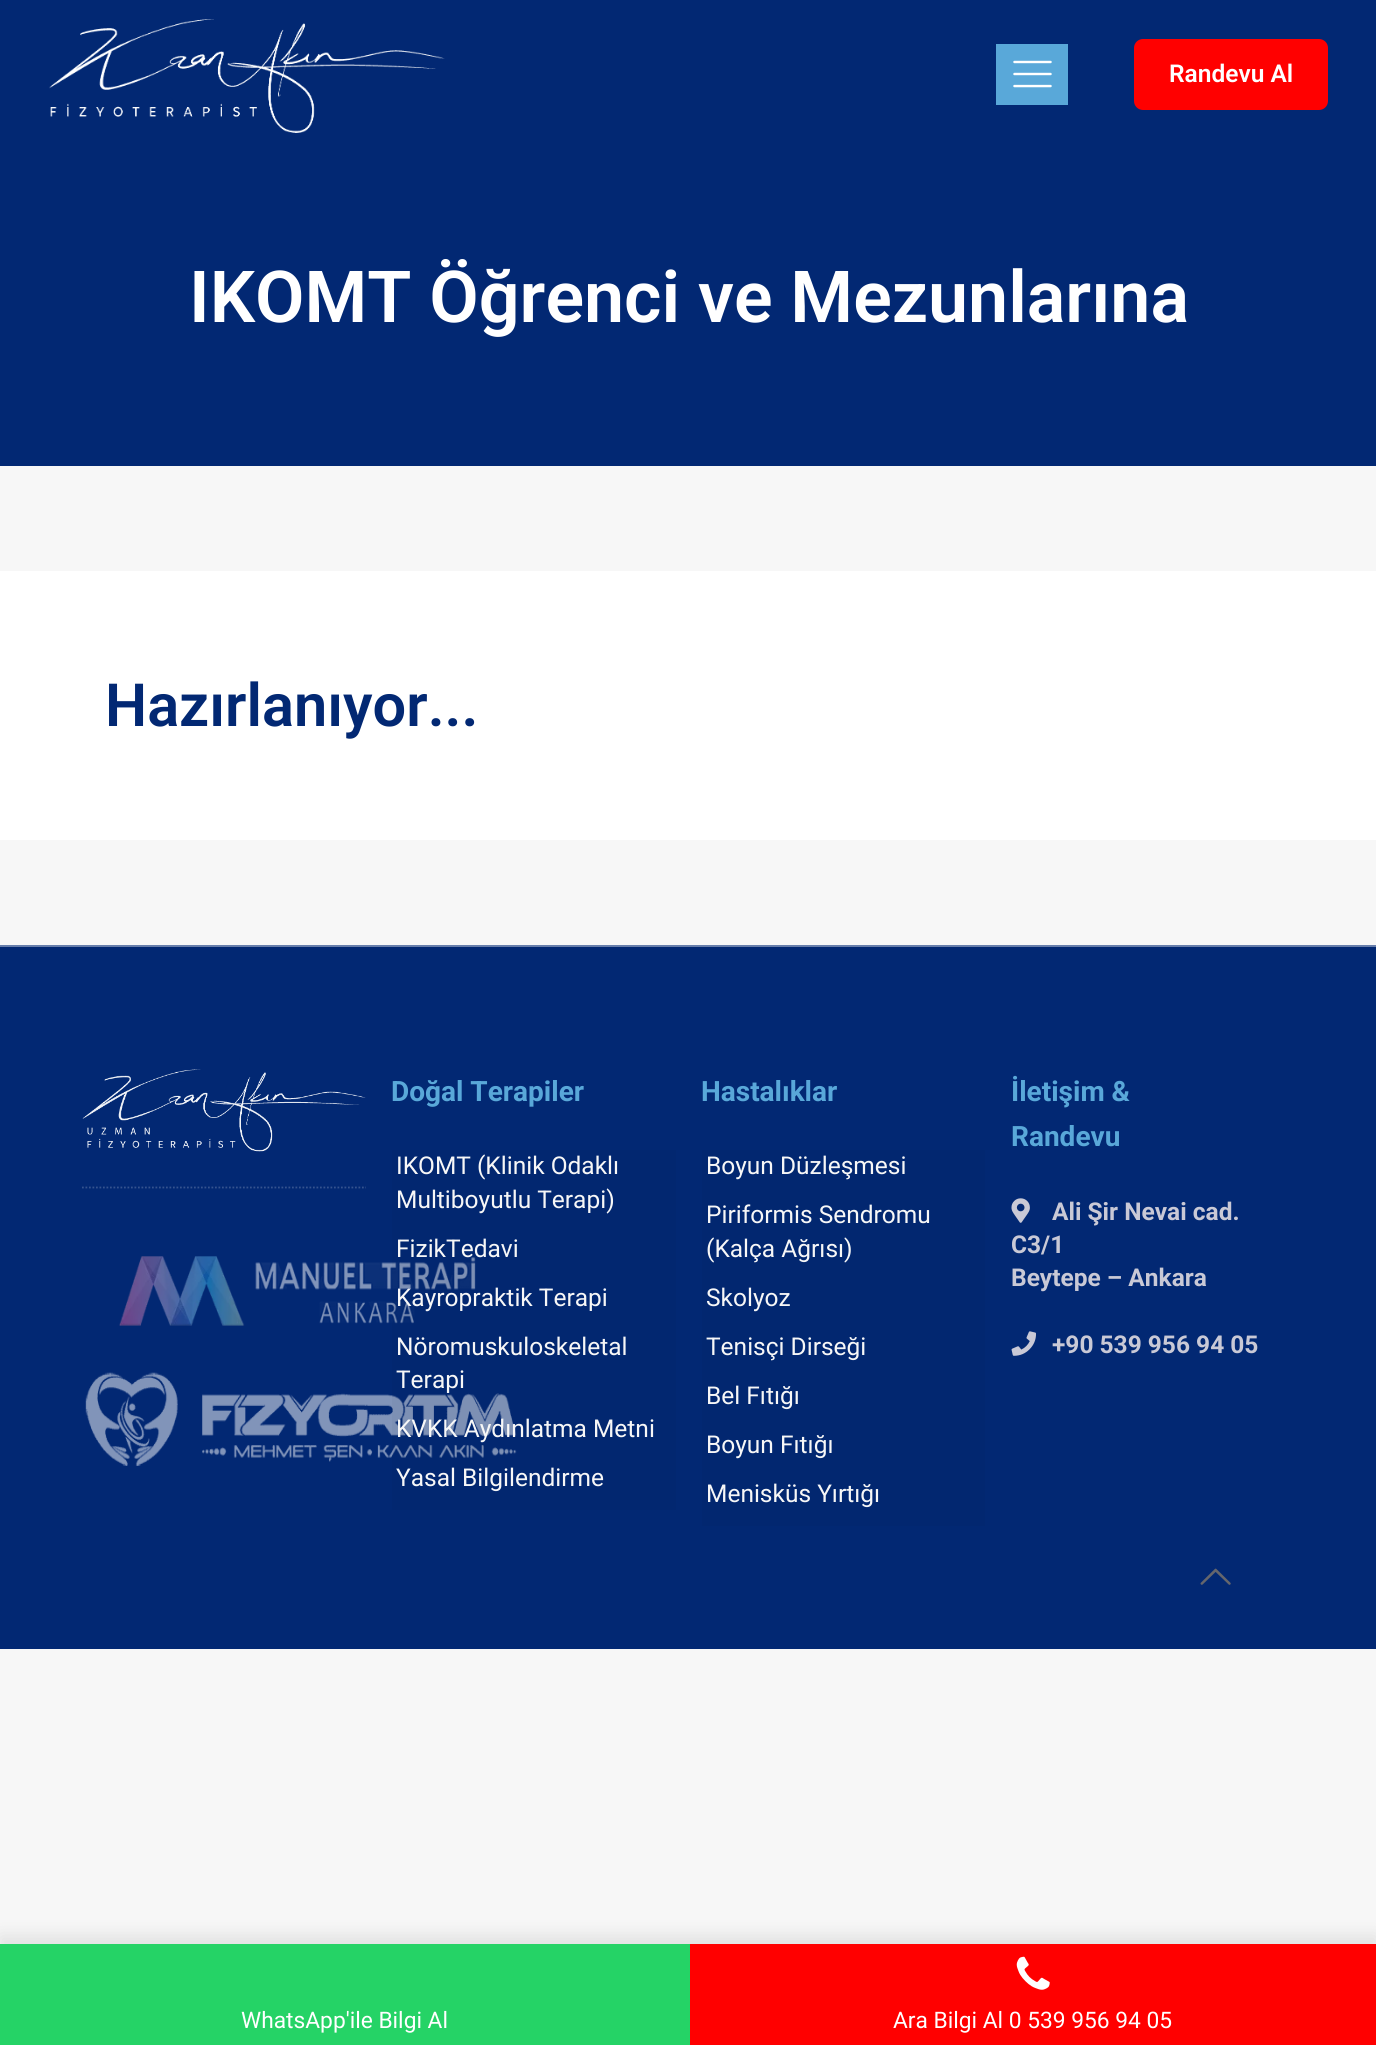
#include <cairo.h>
#include <math.h>
#include <stddef.h>

static cairo_t *ctx;

static void use_color(int r, int g, int b) {
    cairo_set_source_rgb(ctx, r / 255.0, g / 255.0, b / 255.0);
}

static void round_rect(double x, double y, double w, double h, double r) {
    cairo_new_sub_path(ctx);
    cairo_arc(ctx, x + w - r, y + h - r, r, 0, M_PI / 2);
    cairo_arc(ctx, x + r, y + h - r, r, M_PI / 2, M_PI);
    cairo_arc(ctx, x + r, y + r, r, M_PI, 1.5 * M_PI);
    cairo_arc(ctx, x + w - r, y + r, r, 1.5 * M_PI, 2 * M_PI);
    cairo_close_path(ctx);
}

static void shadow(double x, double y, double w, double h, double r, double blur, double alpha) {
    cairo_push_group_with_content(ctx, CAIRO_CONTENT_ALPHA);
    cairo_set_operator(ctx, CAIRO_OPERATOR_SOURCE);
    for (int i = 15; i >= -15 && fmin(w, h) + blur * i / 3 > 0; i -= 2) {
        double e = blur * i / 6;
        cairo_set_source_rgba(ctx, 0, 0, 0, alpha * erfc((i - 1) / 8.5) / 2);
        round_rect(x - e, y - e, w + 2 * e, h + 2 * e, fmax(0, fmin(r + e + blur * .6, fmin(w, h) / 2 + e)));
        cairo_fill(ctx);
    }
    cairo_pattern_t *soft = cairo_pop_group(ctx);
    cairo_mask(ctx, soft);
    cairo_pattern_destroy(soft);
}

static void picture(const char *path, double x, double y, double w, double h) {
    cairo_surface_t *image = cairo_image_surface_create_from_png(path);
    cairo_save(ctx);
    cairo_set_source_surface(ctx, image, x, y);
    cairo_rectangle(ctx, x, y, w, h);
    cairo_fill(ctx);
    cairo_restore(ctx);
    cairo_surface_destroy(image);
}

int main(void) {
    cairo_surface_t *surface = cairo_image_surface_create(CAIRO_FORMAT_RGB24, 1376, 2045);
    ctx = cairo_create(surface);
    cairo_font_options_t *options = cairo_font_options_create();
    cairo_font_options_set_hint_metrics(options, CAIRO_HINT_METRICS_OFF);
    cairo_font_options_set_hint_style(options, CAIRO_HINT_STYLE_NONE);
    cairo_set_font_options(ctx, options);
    cairo_set_miter_limit(ctx, 4);
    use_color(247, 247, 247);
    cairo_paint(ctx);
    use_color(2, 40, 115);
    cairo_rectangle(ctx, 0, 0, 1376, 466);
    cairo_fill(ctx);
    picture("img1.png", 49, 19, 396, 114);
    use_color(89, 168, 217);
    cairo_rectangle(ctx, 996, 44, 72, 61);
    cairo_fill(ctx);
    picture("img2.png", 1013, 60, 39, 28);
    use_color(255, 0, 0);
    round_rect(1134, 39, 194, 71, 9);
    cairo_fill(ctx);
    cairo_select_font_face(ctx, "Roboto SemiBold", CAIRO_FONT_SLANT_NORMAL, CAIRO_FONT_WEIGHT_NORMAL);
    cairo_set_font_size(ctx, 24.5);
    use_color(255, 255, 255);
    cairo_move_to(ctx, 1169, 82);
    cairo_show_text(ctx, "Randevu Al");
    cairo_set_font_size(ctx, 71.75);
    cairo_move_to(ctx, 189, 322);
    cairo_show_text(ctx, "IKOMT Öğrenci ve Mezunlarına");
    cairo_rectangle(ctx, 0, 571, 1376, 269);
    cairo_fill(ctx);
    cairo_set_font_size(ctx, 59.5);
    use_color(2, 40, 115);
    cairo_move_to(ctx, 105, 726);
    cairo_show_text(ctx, "Hazırlanıyor...");
    cairo_rectangle(ctx, 0, 947, 1376, 702);
    cairo_fill(ctx);
    use_color(103, 126, 171);
    cairo_rectangle(ctx, 0, 945, 1376, 2);
    cairo_fill(ctx);
    picture("img3.png", 82, 1069, 284, 83);
    cairo_new_path(ctx);
    cairo_move_to(ctx, 82, 1187.5);
    cairo_line_to(ctx, 366, 1187.5);
    use_color(53, 83, 143);
    cairo_set_line_width(ctx, 1.8);
    cairo_set_dash(ctx, (double[]){1.75, 1.75}, 2, 0);
    cairo_stroke(ctx);
    picture("img4.png", 119, 1256, 357, 70);
    picture("img5.png", 85, 1372, 432, 94);
    cairo_select_font_face(ctx, "Roboto", CAIRO_FONT_SLANT_NORMAL, CAIRO_FONT_WEIGHT_BOLD);
    cairo_set_font_size(ctx, 28);
    use_color(89, 168, 217);
    cairo_move_to(ctx, 391, 1101);
    cairo_show_text(ctx, "Doğal Terapiler");
    cairo_set_source_rgba(ctx, 0, 0, 0, 0.03);
    cairo_rectangle(ctx, 392, 1150, 284, 360);
    cairo_fill(ctx);
    cairo_select_font_face(ctx, "Roboto", CAIRO_FONT_SLANT_NORMAL, CAIRO_FONT_WEIGHT_NORMAL);
    cairo_set_font_size(ctx, 24.5);
    use_color(247, 247, 247);
    cairo_move_to(ctx, 396, 1174);
    cairo_show_text(ctx, "IKOMT (Klinik Odaklı");
    cairo_move_to(ctx, 396, 1208);
    cairo_show_text(ctx, "Multiboyutlu Terapi)");
    cairo_move_to(ctx, 396, 1257);
    cairo_show_text(ctx, "FizikTedavi");
    cairo_move_to(ctx, 396, 1306);
    cairo_show_text(ctx, "Kayropraktik Terapi");
    cairo_move_to(ctx, 396, 1355);
    cairo_show_text(ctx, "Nöromuskuloskeletal");
    cairo_move_to(ctx, 396, 1388);
    cairo_show_text(ctx, "Terapi");
    cairo_move_to(ctx, 396, 1437);
    cairo_show_text(ctx, "KVKK Aydınlatma Metni");
    cairo_move_to(ctx, 396, 1486);
    cairo_show_text(ctx, "Yasal Bilgilendirme");
    cairo_select_font_face(ctx, "Roboto", CAIRO_FONT_SLANT_NORMAL, CAIRO_FONT_WEIGHT_BOLD);
    cairo_set_font_size(ctx, 28);
    use_color(89, 168, 217);
    cairo_move_to(ctx, 701, 1101);
    cairo_show_text(ctx, "Hastalıklar");
    use_color(2, 39, 112);
    cairo_rectangle(ctx, 702, 1150, 283, 376);
    cairo_fill(ctx);
    cairo_select_font_face(ctx, "Roboto", CAIRO_FONT_SLANT_NORMAL, CAIRO_FONT_WEIGHT_NORMAL);
    cairo_set_font_size(ctx, 24.5);
    use_color(247, 247, 247);
    cairo_move_to(ctx, 706, 1174);
    cairo_show_text(ctx, "Boyun Düzleşmesi");
    cairo_move_to(ctx, 706, 1223);
    cairo_show_text(ctx, "Piriformis Sendromu");
    cairo_move_to(ctx, 706, 1257);
    cairo_show_text(ctx, "(Kalça Ağrısı)");
    cairo_move_to(ctx, 706, 1306);
    cairo_show_text(ctx, "Skolyoz");
    cairo_move_to(ctx, 706, 1355);
    cairo_show_text(ctx, "Tenisçi Dirseği");
    cairo_move_to(ctx, 706, 1404);
    cairo_show_text(ctx, "Bel Fıtığı");
    cairo_move_to(ctx, 706, 1453);
    cairo_show_text(ctx, "Boyun Fıtığı");
    cairo_move_to(ctx, 706, 1502);
    cairo_show_text(ctx, "Menisküs Yırtığı");
    cairo_select_font_face(ctx, "Roboto", CAIRO_FONT_SLANT_NORMAL, CAIRO_FONT_WEIGHT_BOLD);
    cairo_set_font_size(ctx, 28);
    use_color(89, 168, 217);
    cairo_move_to(ctx, 1011, 1101);
    cairo_show_text(ctx, "İletişim &");
    cairo_move_to(ctx, 1011, 1146);
    cairo_show_text(ctx, "Randevu");
    picture("img6.png", 1011, 1198, 19, 25);
    cairo_set_font_size(ctx, 24.5);
    use_color(201, 201, 214);
    cairo_move_to(ctx, 1052, 1220);
    cairo_show_text(ctx, "Ali Şir Nevai cad.");
    cairo_move_to(ctx, 1011, 1253);
    cairo_show_text(ctx, "C3/1");
    cairo_move_to(ctx, 1011, 1286);
    cairo_show_text(ctx, "Beytepe – Ankara");
    picture("img7.png", 1011, 1331, 25, 25);
    cairo_move_to(ctx, 1052, 1353);
    cairo_show_text(ctx, "+90 539 956 94 05");
    picture("img8.png", 1200, 1568, 31, 17);
    use_color(0, 0, 0);
    shadow(0, 1936, 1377, 101, 0, 9, 0.1);
    use_color(37, 211, 102);
    cairo_rectangle(ctx, 0, 1944, 690, 101);
    cairo_fill(ctx);
    cairo_select_font_face(ctx, "Roboto", CAIRO_FONT_SLANT_NORMAL, CAIRO_FONT_WEIGHT_NORMAL);
    cairo_set_font_size(ctx, 22.75);
    use_color(255, 255, 255);
    cairo_move_to(ctx, 241, 2028);
    cairo_show_text(ctx, "WhatsApp'ile Bilgi Al");
    use_color(255, 0, 0);
    cairo_rectangle(ctx, 690, 1944, 686, 101);
    cairo_fill(ctx);
    picture("img9.png", 1016, 1956, 34, 34);
    use_color(255, 255, 255);
    cairo_move_to(ctx, 893, 2028);
    cairo_show_text(ctx, "Ara Bilgi Al 0 539 956 94 05");
    cairo_surface_write_to_png(surface, "result.png");
    cairo_font_options_destroy(options);
    cairo_destroy(ctx);
    cairo_surface_destroy(surface);
    return 0;
}
